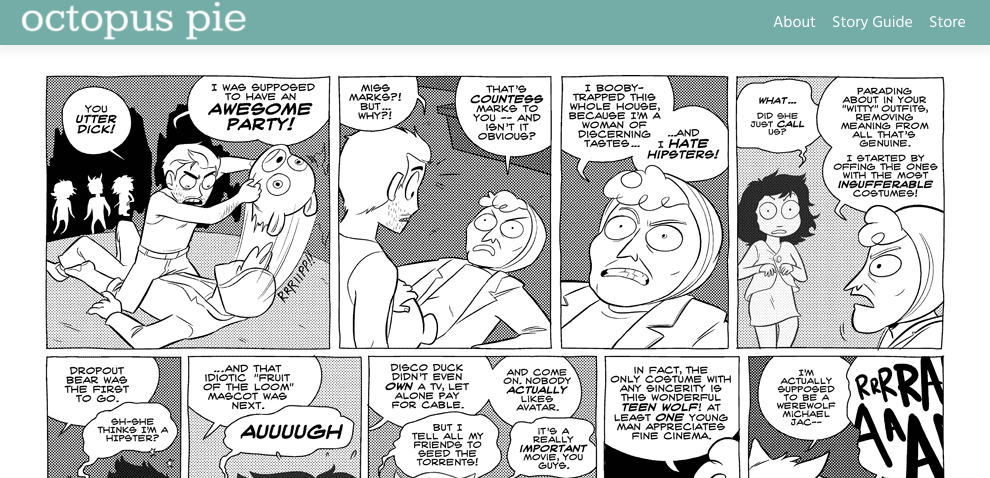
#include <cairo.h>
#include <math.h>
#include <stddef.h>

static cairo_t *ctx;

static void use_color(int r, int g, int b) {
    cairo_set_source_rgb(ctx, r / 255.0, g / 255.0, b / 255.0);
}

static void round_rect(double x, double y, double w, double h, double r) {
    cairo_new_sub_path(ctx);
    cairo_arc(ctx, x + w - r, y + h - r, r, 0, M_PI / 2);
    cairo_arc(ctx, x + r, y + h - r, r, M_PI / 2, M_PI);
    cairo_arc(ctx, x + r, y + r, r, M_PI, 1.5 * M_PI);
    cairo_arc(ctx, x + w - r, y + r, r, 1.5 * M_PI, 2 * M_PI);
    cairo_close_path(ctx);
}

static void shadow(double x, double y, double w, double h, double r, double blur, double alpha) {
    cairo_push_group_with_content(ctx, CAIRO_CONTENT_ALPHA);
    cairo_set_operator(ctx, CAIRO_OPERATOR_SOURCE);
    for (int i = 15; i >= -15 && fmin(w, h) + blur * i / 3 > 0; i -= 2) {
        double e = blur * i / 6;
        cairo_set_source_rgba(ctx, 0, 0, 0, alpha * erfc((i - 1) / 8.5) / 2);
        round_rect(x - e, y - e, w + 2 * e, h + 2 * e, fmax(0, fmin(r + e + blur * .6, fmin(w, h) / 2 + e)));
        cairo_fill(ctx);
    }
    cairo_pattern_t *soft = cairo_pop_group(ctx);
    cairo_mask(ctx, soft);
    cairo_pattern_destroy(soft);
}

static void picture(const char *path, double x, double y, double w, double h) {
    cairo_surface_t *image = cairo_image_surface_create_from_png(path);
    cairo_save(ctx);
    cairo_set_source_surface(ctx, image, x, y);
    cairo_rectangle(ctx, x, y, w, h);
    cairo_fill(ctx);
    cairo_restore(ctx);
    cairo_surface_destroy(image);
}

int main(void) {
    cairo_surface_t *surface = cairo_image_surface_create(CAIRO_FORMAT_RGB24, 990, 478);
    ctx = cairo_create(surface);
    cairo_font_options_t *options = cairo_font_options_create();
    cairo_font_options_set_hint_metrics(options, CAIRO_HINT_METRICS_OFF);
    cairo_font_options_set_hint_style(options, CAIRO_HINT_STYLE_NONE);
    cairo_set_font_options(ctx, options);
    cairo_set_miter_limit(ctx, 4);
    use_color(255, 255, 255);
    cairo_paint(ctx);
    use_color(50, 50, 50);
    shadow(0, 5, 990, 45, 0, 5.5, 0.08);
    use_color(116, 173, 167);
    cairo_rectangle(ctx, 0, 0, 990, 45);
    cairo_fill(ctx);
    picture("img1.png", 21, 1, 225, 39);
    cairo_select_font_face(ctx, "Hind", CAIRO_FONT_SLANT_NORMAL, CAIRO_FONT_WEIGHT_NORMAL);
    cairo_set_font_size(ctx, 16);
    use_color(255, 255, 255);
    cairo_move_to(ctx, 773, 27);
    cairo_show_text(ctx, "About");
    cairo_move_to(ctx, 832, 27);
    cairo_show_text(ctx, "Story Guide");
    cairo_move_to(ctx, 929, 27);
    cairo_show_text(ctx, "Store");
    picture("img2.png", 45, 75, 900, 403);
    cairo_surface_write_to_png(surface, "result.png");
    cairo_font_options_destroy(options);
    cairo_destroy(ctx);
    cairo_surface_destroy(surface);
    return 0;
}
